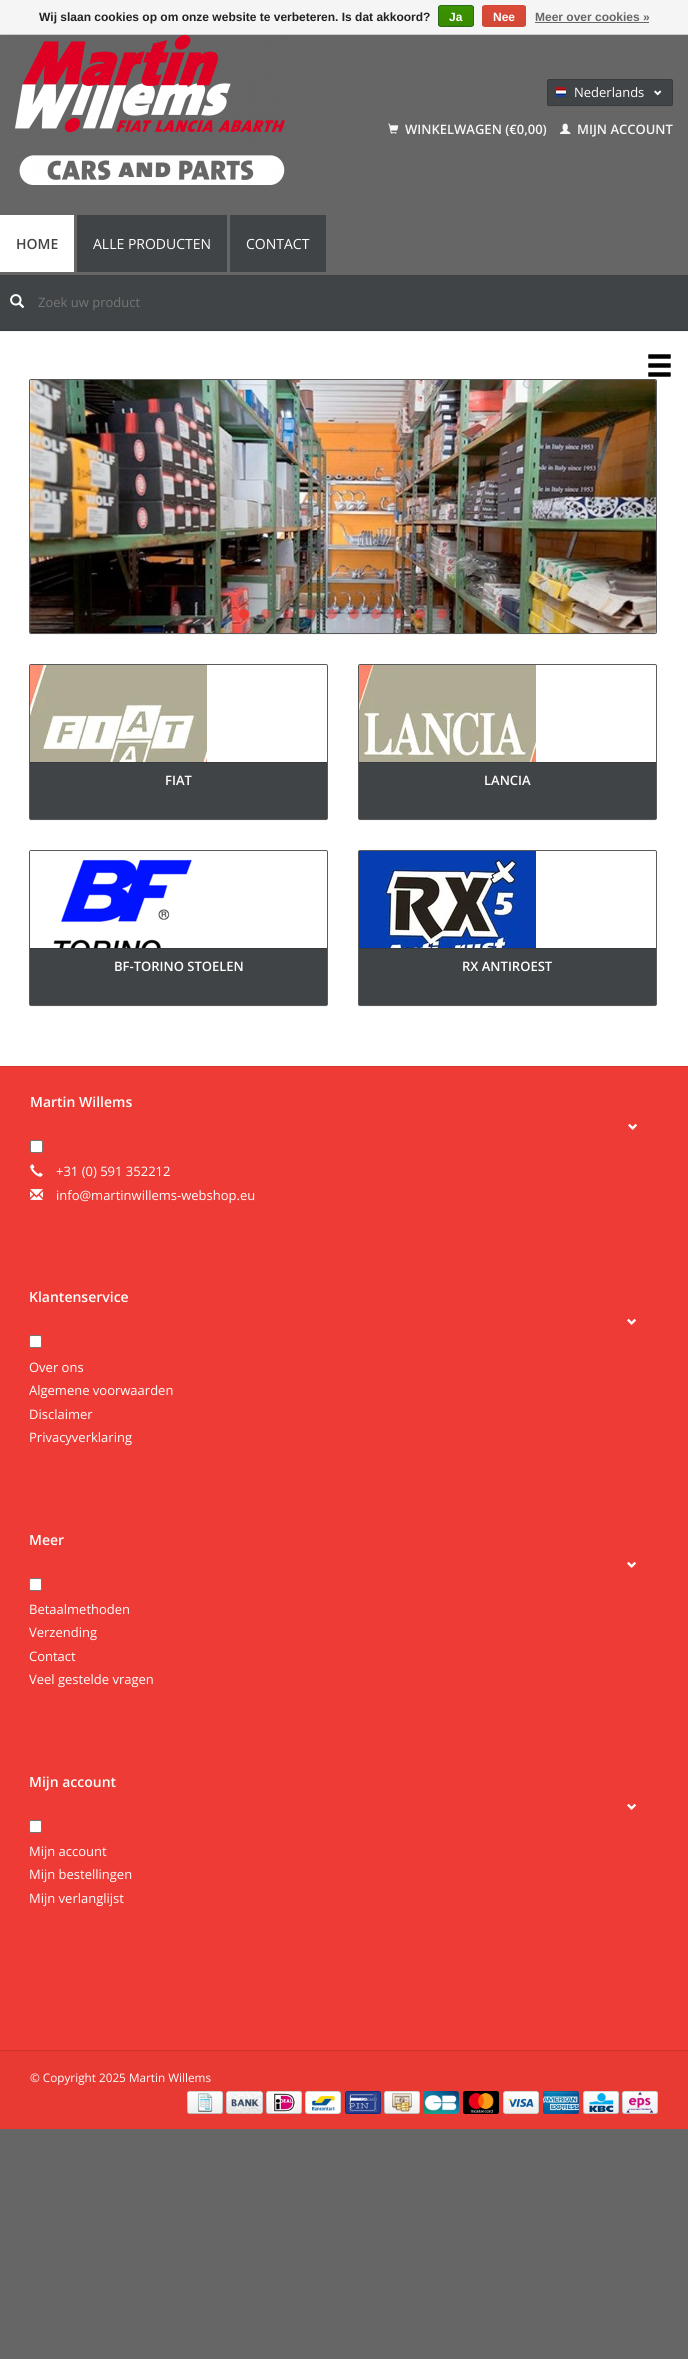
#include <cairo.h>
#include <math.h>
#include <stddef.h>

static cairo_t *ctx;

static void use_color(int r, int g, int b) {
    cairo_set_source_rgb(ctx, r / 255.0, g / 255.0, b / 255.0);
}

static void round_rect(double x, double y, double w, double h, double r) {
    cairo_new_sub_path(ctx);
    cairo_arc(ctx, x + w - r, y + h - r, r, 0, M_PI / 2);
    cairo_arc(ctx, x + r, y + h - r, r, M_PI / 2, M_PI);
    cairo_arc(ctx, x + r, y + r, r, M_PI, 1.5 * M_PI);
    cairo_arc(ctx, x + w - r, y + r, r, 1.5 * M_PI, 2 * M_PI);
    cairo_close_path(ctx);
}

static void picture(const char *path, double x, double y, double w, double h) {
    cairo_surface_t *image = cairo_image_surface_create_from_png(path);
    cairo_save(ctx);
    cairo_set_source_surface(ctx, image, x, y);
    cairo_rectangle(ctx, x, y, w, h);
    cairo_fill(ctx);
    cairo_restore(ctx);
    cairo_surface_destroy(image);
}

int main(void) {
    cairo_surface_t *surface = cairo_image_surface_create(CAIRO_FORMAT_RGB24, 688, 2359);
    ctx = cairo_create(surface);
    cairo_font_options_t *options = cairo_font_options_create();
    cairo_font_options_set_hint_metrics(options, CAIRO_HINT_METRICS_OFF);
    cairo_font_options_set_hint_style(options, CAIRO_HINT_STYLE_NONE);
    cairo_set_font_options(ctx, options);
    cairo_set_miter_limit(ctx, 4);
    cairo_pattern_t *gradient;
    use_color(102, 102, 102);
    cairo_paint(ctx);
    use_color(245, 245, 245);
    cairo_rectangle(ctx, 0, 0, 688, 34);
    cairo_fill(ctx);
    use_color(204, 204, 204);
    cairo_rectangle(ctx, 0, 34, 688, 1);
    cairo_fill(ctx);
    cairo_select_font_face(ctx, "Liberation Sans", CAIRO_FONT_SLANT_NORMAL, CAIRO_FONT_WEIGHT_BOLD);
    cairo_set_font_size(ctx, 12);
    use_color(34, 34, 34);
    cairo_move_to(ctx, 39, 21);
    cairo_show_text(ctx, "Wij slaan cookies op om onze website te verbeteren. Is dat akkoord?");
    cairo_save(ctx);
    round_rect(438, 5, 36, 22, 3);
    cairo_clip(ctx);
    gradient = cairo_pattern_create_linear(456, 6, 456, 26);
    cairo_pattern_add_color_stop_rgba(gradient, 0, 0.235, 0.576, 0, 1);
    cairo_pattern_add_color_stop_rgba(gradient, 1, 0.224, 0.541, 0, 1);
    cairo_set_source(ctx, gradient);
    cairo_pattern_destroy(gradient);
    cairo_rectangle(ctx, 438, 6, 36, 20);
    cairo_fill(ctx);
    cairo_restore(ctx);
    round_rect(438.5, 5.5, 35, 21, 2.5);
    use_color(41, 105, 29);
    cairo_set_line_width(ctx, 1);
    cairo_stroke(ctx);
    use_color(255, 255, 255);
    cairo_move_to(ctx, 449, 21);
    cairo_show_text(ctx, "Ja");
    cairo_save(ctx);
    round_rect(482, 5, 44, 22, 3);
    cairo_clip(ctx);
    gradient = cairo_pattern_create_linear(504, 6, 504, 26);
    cairo_pattern_add_color_stop_rgba(gradient, 0, 0.863, 0.29, 0.22, 1);
    cairo_pattern_add_color_stop_rgba(gradient, 1, 0.82, 0.282, 0.212, 1);
    cairo_set_source(ctx, gradient);
    cairo_pattern_destroy(gradient);
    cairo_rectangle(ctx, 482, 6, 44, 20);
    cairo_fill(ctx);
    cairo_restore(ctx);
    round_rect(482.5, 5.5, 43, 21, 2.5);
    use_color(209, 72, 54);
    cairo_stroke(ctx);
    use_color(255, 255, 255);
    cairo_move_to(ctx, 493, 21);
    cairo_show_text(ctx, "Nee");
    use_color(102, 102, 102);
    cairo_move_to(ctx, 535, 21);
    cairo_show_text(ctx, "Meer over cookies »");
    cairo_rectangle(ctx, 535, 22, 114, 1);
    cairo_fill(ctx);
    picture("img1.png", 15, 35, 270, 150);
    use_color(98, 98, 98);
    cairo_new_path(ctx);
    cairo_move_to(ctx, 547, 104);
    cairo_curve_to(ctx, 547, 105, 547, 106, 548, 107);
    cairo_line_to(ctx, 671, 107);
    cairo_line_to(ctx, 672, 106);
    cairo_line_to(ctx, 673, 104);
    cairo_curve_to(ctx, 673, 105, 672, 106, 671, 106);
    cairo_line_to(ctx, 549, 106);
    cairo_curve_to(ctx, 548, 106, 547, 105, 547, 104);
    cairo_close_path(ctx);
    cairo_fill(ctx);
    use_color(64, 68, 70);
    round_rect(547.5, 79.5, 125, 26, 1.5);
    cairo_fill_preserve(ctx);
    use_color(56, 59, 61);
    cairo_stroke(ctx);
    picture("img2.png", 556, 87, 10, 10);
    cairo_select_font_face(ctx, "Open Sans", CAIRO_FONT_SLANT_NORMAL, CAIRO_FONT_WEIGHT_NORMAL);
    cairo_set_font_size(ctx, 13);
    use_color(255, 255, 255);
    cairo_move_to(ctx, 574, 97);
    cairo_show_text(ctx, "Nederlands");
    picture("img3.png", 654, 90, 8, 6);
    picture("img4.png", 388, 123, 11, 11);
    cairo_select_font_face(ctx, "Open Sans SemiBold", CAIRO_FONT_SLANT_NORMAL, CAIRO_FONT_WEIGHT_NORMAL);
    use_color(247, 247, 247);
    cairo_move_to(ctx, 405, 134);
    cairo_show_text(ctx, "WINKELWAGEN (€0,00)");
    picture("img5.png", 560, 123, 11, 11);
    cairo_move_to(ctx, 577, 134);
    cairo_show_text(ctx, "MIJN ACCOUNT");
    use_color(255, 255, 255);
    cairo_rectangle(ctx, 0, 332, 688, 734);
    cairo_fill(ctx);
    use_color(245, 245, 245);
    cairo_rectangle(ctx, 0, 331, 688, 1);
    cairo_fill(ctx);
    use_color(56, 59, 61);
    cairo_rectangle(ctx, 0, 330, 688, 1);
    cairo_fill(ctx);
    use_color(255, 255, 255);
    cairo_rectangle(ctx, 0, 215, 74, 57);
    cairo_fill(ctx);
    cairo_set_font_size(ctx, 14);
    use_color(68, 68, 68);
    cairo_move_to(ctx, 16, 249);
    cairo_show_text(ctx, "HOME");
    use_color(64, 68, 70);
    cairo_rectangle(ctx, 77, 215, 150, 57);
    cairo_fill(ctx);
    cairo_select_font_face(ctx, "Open Sans", CAIRO_FONT_SLANT_NORMAL, CAIRO_FONT_WEIGHT_NORMAL);
    use_color(255, 255, 255);
    cairo_move_to(ctx, 93, 249);
    cairo_show_text(ctx, "ALLE PRODUCTEN");
    use_color(64, 68, 70);
    cairo_rectangle(ctx, 230, 215, 96, 57);
    cairo_fill(ctx);
    use_color(255, 255, 255);
    cairo_move_to(ctx, 246, 249);
    cairo_show_text(ctx, "CONTACT");
    use_color(64, 68, 70);
    cairo_rectangle(ctx, 0, 275, 688, 55);
    cairo_fill(ctx);
    picture("img6.png", 10, 294, 15, 14);
    cairo_set_font_size(ctx, 13);
    use_color(117, 117, 117);
    cairo_move_to(ctx, 38, 307);
    cairo_show_text(ctx, "Zoek uw product");
    picture("img7.png", 648, 354, 23, 23);
    use_color(245, 245, 245);
    cairo_new_path(ctx);
    cairo_move_to(ctx, 29, 632);
    cairo_curve_to(ctx, 29, 633, 29, 635, 31, 635);
    cairo_line_to(ctx, 655, 635);
    cairo_curve_to(ctx, 657, 635, 657, 633, 657, 632);
    cairo_curve_to(ctx, 657, 633, 656, 634, 655, 634);
    cairo_line_to(ctx, 31, 634);
    cairo_curve_to(ctx, 30, 634, 29, 633, 29, 632);
    cairo_close_path(ctx);
    cairo_fill(ctx);
    round_rect(29.5, 379.5, 627, 254, 1.5);
    use_color(89, 89, 89);
    cairo_stroke(ctx);
    picture("img8.png", 30, 380, 626, 253);
    use_color(238, 59, 52);
    cairo_arc(ctx, 244, 614, 5, 0, 2 * M_PI);
    cairo_fill(ctx);
    cairo_set_source_rgba(ctx, 0.933, 0.231, 0.204, 0.5);
    cairo_arc(ctx, 266, 614, 5, 0, 2 * M_PI);
    cairo_fill(ctx);
    cairo_arc(ctx, 288, 614, 5, 0, 2 * M_PI);
    cairo_fill(ctx);
    cairo_arc(ctx, 310, 614, 5, 0, 2 * M_PI);
    cairo_fill(ctx);
    cairo_arc(ctx, 332, 614, 5, 0, 2 * M_PI);
    cairo_fill(ctx);
    cairo_arc(ctx, 354, 614, 5, 0, 2 * M_PI);
    cairo_fill(ctx);
    cairo_arc(ctx, 376, 614, 5, 0, 2 * M_PI);
    cairo_fill(ctx);
    cairo_arc(ctx, 398, 614, 5, 0, 2 * M_PI);
    cairo_fill(ctx);
    cairo_arc(ctx, 420, 614, 5, 0, 2 * M_PI);
    cairo_fill(ctx);
    cairo_arc(ctx, 442, 614, 5, 0, 2 * M_PI);
    cairo_fill(ctx);
    use_color(245, 245, 245);
    cairo_new_path(ctx);
    cairo_move_to(ctx, 29, 818);
    cairo_curve_to(ctx, 29, 819, 29, 821, 31, 821);
    cairo_line_to(ctx, 327, 821);
    cairo_line_to(ctx, 328, 818);
    cairo_curve_to(ctx, 328, 819, 327, 820, 326, 820);
    cairo_line_to(ctx, 31, 820);
    cairo_curve_to(ctx, 30, 820, 29, 819, 29, 818);
    cairo_close_path(ctx);
    cairo_fill(ctx);
    round_rect(29.5, 664.5, 298, 155, 1.5);
    use_color(89, 89, 89);
    cairo_stroke(ctx);
    picture("img9.png", 30, 665, 177, 97);
    use_color(64, 68, 70);
    cairo_rectangle(ctx, 30, 763, 297, 56);
    cairo_fill(ctx);
    use_color(56, 59, 61);
    cairo_rectangle(ctx, 30, 762, 297, 1);
    cairo_fill(ctx);
    cairo_select_font_face(ctx, "Open Sans SemiBold", CAIRO_FONT_SLANT_NORMAL, CAIRO_FONT_WEIGHT_NORMAL);
    use_color(255, 255, 255);
    cairo_move_to(ctx, 165, 785);
    cairo_show_text(ctx, "FIAT");
    use_color(245, 245, 245);
    cairo_new_path(ctx);
    cairo_move_to(ctx, 358, 818);
    cairo_curve_to(ctx, 358, 819, 358, 821, 360, 821);
    cairo_line_to(ctx, 656, 821);
    cairo_line_to(ctx, 657, 818);
    cairo_curve_to(ctx, 657, 819, 656, 820, 655, 820);
    cairo_line_to(ctx, 360, 820);
    cairo_curve_to(ctx, 359, 820, 358, 819, 358, 818);
    cairo_close_path(ctx);
    cairo_fill(ctx);
    round_rect(358.5, 664.5, 298, 155, 1.5);
    use_color(89, 89, 89);
    cairo_stroke(ctx);
    picture("img10.png", 359, 665, 177, 97);
    use_color(64, 68, 70);
    cairo_rectangle(ctx, 359, 763, 297, 56);
    cairo_fill(ctx);
    use_color(56, 59, 61);
    cairo_rectangle(ctx, 359, 762, 297, 1);
    cairo_fill(ctx);
    use_color(255, 255, 255);
    cairo_move_to(ctx, 484, 785);
    cairo_show_text(ctx, "LANCIA");
    use_color(245, 245, 245);
    cairo_new_path(ctx);
    cairo_move_to(ctx, 29, 1004);
    cairo_curve_to(ctx, 29, 1005, 29, 1007, 31, 1007);
    cairo_line_to(ctx, 327, 1007);
    cairo_line_to(ctx, 328, 1004);
    cairo_curve_to(ctx, 328, 1005, 327, 1006, 326, 1006);
    cairo_line_to(ctx, 31, 1006);
    cairo_curve_to(ctx, 30, 1006, 29, 1005, 29, 1004);
    cairo_close_path(ctx);
    cairo_fill(ctx);
    round_rect(29.5, 850.5, 298, 155, 1.5);
    use_color(89, 89, 89);
    cairo_stroke(ctx);
    picture("img11.png", 30, 851, 162, 97);
    use_color(64, 68, 70);
    cairo_rectangle(ctx, 30, 949, 297, 56);
    cairo_fill(ctx);
    use_color(56, 59, 61);
    cairo_rectangle(ctx, 30, 948, 297, 1);
    cairo_fill(ctx);
    use_color(255, 255, 255);
    cairo_move_to(ctx, 114, 971);
    cairo_show_text(ctx, "BF-TORINO STOELEN");
    use_color(245, 245, 245);
    cairo_new_path(ctx);
    cairo_move_to(ctx, 358, 1004);
    cairo_curve_to(ctx, 358, 1005, 358, 1007, 360, 1007);
    cairo_line_to(ctx, 656, 1007);
    cairo_line_to(ctx, 657, 1004);
    cairo_curve_to(ctx, 657, 1005, 656, 1006, 655, 1006);
    cairo_line_to(ctx, 360, 1006);
    cairo_curve_to(ctx, 359, 1006, 358, 1005, 358, 1004);
    cairo_close_path(ctx);
    cairo_fill(ctx);
    round_rect(358.5, 850.5, 298, 155, 1.5);
    use_color(89, 89, 89);
    cairo_stroke(ctx);
    picture("img12.png", 359, 851, 177, 97);
    use_color(64, 68, 70);
    cairo_rectangle(ctx, 359, 949, 297, 56);
    cairo_fill(ctx);
    use_color(56, 59, 61);
    cairo_rectangle(ctx, 359, 948, 297, 1);
    cairo_fill(ctx);
    use_color(255, 255, 255);
    cairo_move_to(ctx, 462, 971);
    cairo_show_text(ctx, "RX ANTIROEST");
    use_color(238, 59, 53);
    cairo_rectangle(ctx, 0, 1067, 688, 983);
    cairo_fill(ctx);
    use_color(209, 51, 46);
    cairo_rectangle(ctx, 0, 1066, 688, 1);
    cairo_fill(ctx);
    cairo_set_font_size(ctx, 14);
    use_color(255, 255, 255);
    cairo_move_to(ctx, 30, 1107);
    cairo_show_text(ctx, "Martin Willems");
    picture("img13.png", 628, 1123, 10, 7);
    round_rect(30.5, 1140.5, 12, 12, 1.5);
    cairo_fill_preserve(ctx);
    use_color(118, 118, 118);
    cairo_stroke(ctx);
    picture("img14.png", 30, 1164, 13, 13);
    cairo_select_font_face(ctx, "Open Sans", CAIRO_FONT_SLANT_NORMAL, CAIRO_FONT_WEIGHT_NORMAL);
    cairo_set_font_size(ctx, 13);
    use_color(255, 255, 255);
    cairo_move_to(ctx, 56, 1176);
    cairo_show_text(ctx, "+31 (0) 591 352212");
    picture("img15.png", 30, 1189, 13, 11);
    cairo_move_to(ctx, 56, 1200);
    cairo_show_text(ctx, "info@martinwillems-webshop.eu");
    cairo_select_font_face(ctx, "Open Sans SemiBold", CAIRO_FONT_SLANT_NORMAL, CAIRO_FONT_WEIGHT_NORMAL);
    cairo_set_font_size(ctx, 14);
    cairo_move_to(ctx, 29, 1302);
    cairo_show_text(ctx, "Klantenservice");
    picture("img13.png", 627, 1318, 10, 7);
    round_rect(29.5, 1335.5, 12, 12, 1.5);
    cairo_fill_preserve(ctx);
    use_color(118, 118, 118);
    cairo_stroke(ctx);
    cairo_select_font_face(ctx, "Open Sans", CAIRO_FONT_SLANT_NORMAL, CAIRO_FONT_WEIGHT_NORMAL);
    cairo_set_font_size(ctx, 13);
    use_color(255, 255, 255);
    cairo_move_to(ctx, 29, 1372);
    cairo_show_text(ctx, "Over ons");
    cairo_move_to(ctx, 29, 1395);
    cairo_show_text(ctx, "Algemene voorwaarden");
    cairo_move_to(ctx, 29, 1419);
    cairo_show_text(ctx, "Disclaimer");
    cairo_move_to(ctx, 29, 1442);
    cairo_show_text(ctx, "Privacyverklaring");
    cairo_select_font_face(ctx, "Open Sans SemiBold", CAIRO_FONT_SLANT_NORMAL, CAIRO_FONT_WEIGHT_NORMAL);
    cairo_set_font_size(ctx, 14);
    cairo_move_to(ctx, 29, 1545);
    cairo_show_text(ctx, "Meer");
    picture("img13.png", 627, 1561, 10, 7);
    round_rect(29.5, 1578.5, 12, 12, 1.5);
    cairo_fill_preserve(ctx);
    use_color(118, 118, 118);
    cairo_stroke(ctx);
    cairo_select_font_face(ctx, "Open Sans", CAIRO_FONT_SLANT_NORMAL, CAIRO_FONT_WEIGHT_NORMAL);
    cairo_set_font_size(ctx, 13);
    use_color(255, 255, 255);
    cairo_move_to(ctx, 29, 1614);
    cairo_show_text(ctx, "Betaalmethoden");
    cairo_move_to(ctx, 29, 1637);
    cairo_show_text(ctx, "Verzending");
    cairo_move_to(ctx, 29, 1661);
    cairo_show_text(ctx, "Contact");
    cairo_move_to(ctx, 29, 1684);
    cairo_show_text(ctx, "Veel gestelde vragen");
    cairo_select_font_face(ctx, "Open Sans SemiBold", CAIRO_FONT_SLANT_NORMAL, CAIRO_FONT_WEIGHT_NORMAL);
    cairo_set_font_size(ctx, 14);
    cairo_move_to(ctx, 29, 1787);
    cairo_show_text(ctx, "Mijn account");
    picture("img13.png", 627, 1803, 10, 7);
    round_rect(29.5, 1820.5, 12, 12, 1.5);
    cairo_fill_preserve(ctx);
    use_color(118, 118, 118);
    cairo_stroke(ctx);
    cairo_select_font_face(ctx, "Open Sans", CAIRO_FONT_SLANT_NORMAL, CAIRO_FONT_WEIGHT_NORMAL);
    cairo_set_font_size(ctx, 13);
    use_color(255, 255, 255);
    cairo_move_to(ctx, 29, 1856);
    cairo_show_text(ctx, "Mijn account");
    cairo_move_to(ctx, 29, 1879);
    cairo_show_text(ctx, "Mijn bestellingen");
    cairo_move_to(ctx, 29, 1903);
    cairo_show_text(ctx, "Mijn verlanglijst");
    use_color(209, 51, 46);
    cairo_rectangle(ctx, 0, 2050, 688, 1);
    cairo_fill(ctx);
    use_color(232, 57, 51);
    cairo_rectangle(ctx, 0, 2051, 688, 78);
    cairo_fill(ctx);
    cairo_set_font_size(ctx, 11.75);
    use_color(255, 255, 255);
    cairo_move_to(ctx, 30, 2082);
    cairo_show_text(ctx, "© Copyright 2025 Martin Willems");
    picture("img16.png", 187, 2091, 36, 23);
    picture("img17.png", 226, 2091, 37, 23);
    picture("img18.png", 266, 2091, 36, 23);
    picture("img19.png", 305, 2091, 36, 23);
    picture("img20.png", 345, 2091, 36, 23);
    picture("img21.png", 384, 2091, 36, 23);
    picture("img22.png", 423, 2091, 36, 23);
    picture("img23.png", 463, 2091, 36, 23);
    picture("img24.png", 503, 2091, 36, 23);
    picture("img25.png", 543, 2091, 36, 23);
    picture("img26.png", 583, 2091, 36, 23);
    picture("img27.png", 622, 2091, 36, 23);
    cairo_surface_write_to_png(surface, "result.png");
    cairo_font_options_destroy(options);
    cairo_destroy(ctx);
    cairo_surface_destroy(surface);
    return 0;
}
